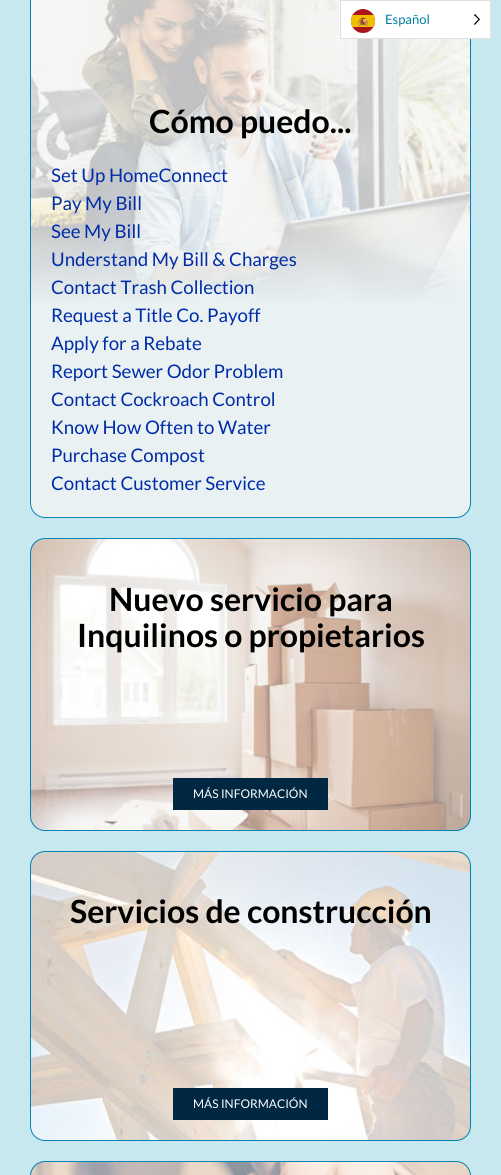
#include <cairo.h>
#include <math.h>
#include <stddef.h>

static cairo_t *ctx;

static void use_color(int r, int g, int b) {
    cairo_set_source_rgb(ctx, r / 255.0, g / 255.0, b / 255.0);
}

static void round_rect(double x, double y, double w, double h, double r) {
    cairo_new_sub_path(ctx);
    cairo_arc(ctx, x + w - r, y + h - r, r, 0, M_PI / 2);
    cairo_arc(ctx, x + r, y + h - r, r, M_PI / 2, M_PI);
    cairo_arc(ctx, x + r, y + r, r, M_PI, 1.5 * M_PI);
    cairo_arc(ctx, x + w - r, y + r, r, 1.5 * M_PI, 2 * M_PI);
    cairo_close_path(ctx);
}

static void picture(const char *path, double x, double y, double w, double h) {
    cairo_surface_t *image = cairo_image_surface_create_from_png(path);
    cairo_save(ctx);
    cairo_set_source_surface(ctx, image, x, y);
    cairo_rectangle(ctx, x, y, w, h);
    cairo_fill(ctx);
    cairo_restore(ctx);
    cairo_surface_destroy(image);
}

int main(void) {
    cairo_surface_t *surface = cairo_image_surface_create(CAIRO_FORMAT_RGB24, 501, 1175);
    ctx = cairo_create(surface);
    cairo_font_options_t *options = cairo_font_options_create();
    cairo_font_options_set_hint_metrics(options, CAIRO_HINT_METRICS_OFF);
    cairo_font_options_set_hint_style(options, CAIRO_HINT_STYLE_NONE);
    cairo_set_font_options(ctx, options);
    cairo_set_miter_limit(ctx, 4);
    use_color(199, 232, 239);
    cairo_paint(ctx);
    use_color(233, 241, 243);
    round_rect(30, -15, 441, 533, 15);
    cairo_fill(ctx);
    picture("img3.png", 31, 0, 439, 302);
    round_rect(30.5, -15.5, 440, 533, 14.5);
    use_color(1, 130, 181);
    cairo_set_line_width(ctx, 1);
    cairo_stroke(ctx);
    use_color(255, 255, 255);
    cairo_rectangle(ctx, 340.5, 0.5, 150, 38);
    cairo_fill_preserve(ctx);
    use_color(224, 224, 224);
    cairo_stroke(ctx);
    picture("img1.png", 351, 9, 24, 24);
    cairo_select_font_face(ctx, "Lato", CAIRO_FONT_SLANT_NORMAL, CAIRO_FONT_WEIGHT_NORMAL);
    cairo_set_font_size(ctx, 13);
    use_color(0, 128, 166);
    cairo_move_to(ctx, 385, 24);
    cairo_show_text(ctx, "Español");
    picture("img2.png", 474, 14, 6, 11);
    cairo_select_font_face(ctx, "Lato", CAIRO_FONT_SLANT_NORMAL, CAIRO_FONT_WEIGHT_BOLD);
    cairo_set_font_size(ctx, 32);
    use_color(0, 0, 0);
    cairo_move_to(ctx, 149, 133);
    cairo_show_text(ctx, "Cómo puedo...");
    cairo_select_font_face(ctx, "Lato", CAIRO_FONT_SLANT_NORMAL, CAIRO_FONT_WEIGHT_NORMAL);
    cairo_set_font_size(ctx, 18.7);
    use_color(0, 44, 168);
    cairo_move_to(ctx, 51, 182);
    cairo_show_text(ctx, "Set Up HomeConnect");
    cairo_move_to(ctx, 51, 210);
    cairo_show_text(ctx, "Pay My Bill");
    cairo_move_to(ctx, 51, 238);
    cairo_show_text(ctx, "See My Bill");
    cairo_move_to(ctx, 51, 266);
    cairo_show_text(ctx, "Understand My Bill & Charges");
    cairo_move_to(ctx, 51, 294);
    cairo_show_text(ctx, "Contact Trash Collection");
    cairo_move_to(ctx, 51, 322);
    cairo_show_text(ctx, "Request a Title Co. Payoff");
    cairo_move_to(ctx, 51, 350);
    cairo_show_text(ctx, "Apply for a Rebate");
    cairo_move_to(ctx, 51, 378);
    cairo_show_text(ctx, "Report Sewer Odor Problem");
    cairo_move_to(ctx, 51, 406);
    cairo_show_text(ctx, "Contact Cockroach Control");
    cairo_move_to(ctx, 51, 434);
    cairo_show_text(ctx, "Know How Often to Water");
    cairo_move_to(ctx, 51, 462);
    cairo_show_text(ctx, "Purchase Compost");
    cairo_move_to(ctx, 51, 490);
    cairo_show_text(ctx, "Contact Customer Service");
    picture("img4.png", 31, 539, 439, 292);
    round_rect(30.5, 538.5, 440, 292, 14.5);
    use_color(1, 130, 181);
    cairo_stroke(ctx);
    cairo_select_font_face(ctx, "Lato", CAIRO_FONT_SLANT_NORMAL, CAIRO_FONT_WEIGHT_BOLD);
    cairo_set_font_size(ctx, 32);
    use_color(0, 0, 0);
    cairo_move_to(ctx, 109, 611);
    cairo_show_text(ctx, "Nuevo servicio para");
    cairo_move_to(ctx, 77, 647);
    cairo_show_text(ctx, "Inquilinos o propietarios");
    use_color(1, 40, 66);
    cairo_rectangle(ctx, 173, 778, 155, 32);
    cairo_fill(ctx);
    cairo_select_font_face(ctx, "Lato", CAIRO_FONT_SLANT_NORMAL, CAIRO_FONT_WEIGHT_NORMAL);
    cairo_set_font_size(ctx, 12);
    use_color(255, 255, 255);
    cairo_move_to(ctx, 193, 798);
    cairo_show_text(ctx, "MÁS INFORMACIÓN");
    picture("img5.png", 31, 852, 439, 289);
    round_rect(30.5, 851.5, 440, 289, 14.5);
    use_color(1, 130, 181);
    cairo_stroke(ctx);
    cairo_select_font_face(ctx, "Lato", CAIRO_FONT_SLANT_NORMAL, CAIRO_FONT_WEIGHT_BOLD);
    cairo_set_font_size(ctx, 32);
    use_color(0, 0, 0);
    cairo_move_to(ctx, 70, 923);
    cairo_show_text(ctx, "Servicios de construcción");
    use_color(1, 40, 66);
    cairo_rectangle(ctx, 173, 1088, 155, 32);
    cairo_fill(ctx);
    cairo_select_font_face(ctx, "Lato", CAIRO_FONT_SLANT_NORMAL, CAIRO_FONT_WEIGHT_NORMAL);
    cairo_set_font_size(ctx, 12);
    use_color(255, 255, 255);
    cairo_move_to(ctx, 193, 1108);
    cairo_show_text(ctx, "MÁS INFORMACIÓN");
    picture("img6.png", 31, 1162, 439, 13);
    round_rect(30.5, 1161.5, 440, 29, 14.5);
    use_color(1, 130, 181);
    cairo_stroke(ctx);
    cairo_surface_write_to_png(surface, "result.png");
    cairo_font_options_destroy(options);
    cairo_destroy(ctx);
    cairo_surface_destroy(surface);
    return 0;
}
